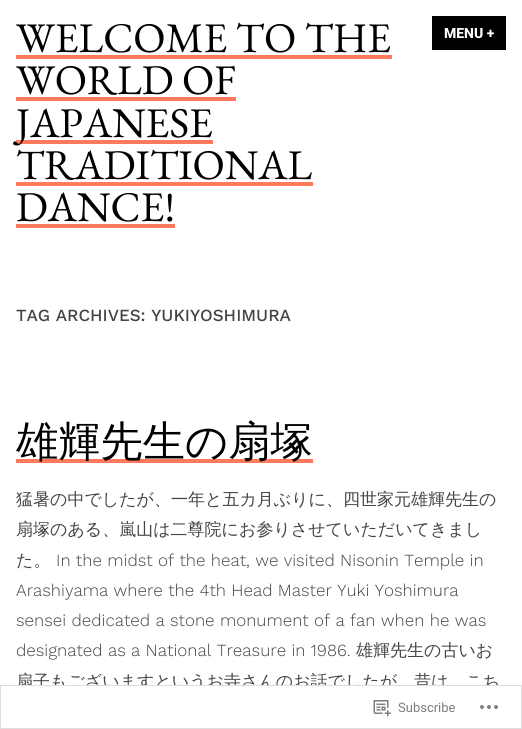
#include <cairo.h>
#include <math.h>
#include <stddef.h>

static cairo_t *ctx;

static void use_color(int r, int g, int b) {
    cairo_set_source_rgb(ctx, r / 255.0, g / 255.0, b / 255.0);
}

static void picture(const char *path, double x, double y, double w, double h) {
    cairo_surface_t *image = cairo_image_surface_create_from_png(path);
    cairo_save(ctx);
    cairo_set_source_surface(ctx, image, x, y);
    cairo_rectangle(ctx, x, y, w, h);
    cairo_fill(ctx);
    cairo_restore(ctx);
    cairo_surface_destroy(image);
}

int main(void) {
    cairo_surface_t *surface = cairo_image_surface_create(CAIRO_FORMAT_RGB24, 522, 729);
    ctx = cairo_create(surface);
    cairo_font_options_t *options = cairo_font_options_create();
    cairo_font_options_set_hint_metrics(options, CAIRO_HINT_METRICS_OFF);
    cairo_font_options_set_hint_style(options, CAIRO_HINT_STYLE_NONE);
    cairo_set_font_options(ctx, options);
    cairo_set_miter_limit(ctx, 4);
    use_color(255, 255, 255);
    cairo_paint(ctx);
    cairo_select_font_face(ctx, "EB Garamond", CAIRO_FONT_SLANT_NORMAL, CAIRO_FONT_WEIGHT_NORMAL);
    cairo_set_font_size(ctx, 42.25);
    use_color(0, 0, 0);
    cairo_move_to(ctx, 16, 52);
    cairo_show_text(ctx, "WELCOME TO THE");
    use_color(255, 122, 92);
    cairo_rectangle(ctx, 16, 55, 376, 4);
    cairo_fill(ctx);
    use_color(0, 0, 0);
    cairo_move_to(ctx, 16, 94);
    cairo_show_text(ctx, "WORLD OF");
    use_color(255, 122, 92);
    cairo_rectangle(ctx, 16, 97, 220, 4);
    cairo_fill(ctx);
    cairo_rectangle(ctx, 16, 140, 197, 4);
    cairo_fill(ctx);
    use_color(0, 0, 0);
    cairo_move_to(ctx, 16, 137);
    cairo_show_text(ctx, "JAPANESE");
    cairo_move_to(ctx, 16, 179);
    cairo_show_text(ctx, "TRADITIONAL");
    use_color(255, 122, 92);
    cairo_rectangle(ctx, 16, 182, 297, 4);
    cairo_fill(ctx);
    use_color(0, 0, 0);
    cairo_move_to(ctx, 16, 221);
    cairo_show_text(ctx, "DANCE!");
    use_color(255, 122, 92);
    cairo_rectangle(ctx, 16, 224, 159, 4);
    cairo_fill(ctx);
    use_color(0, 0, 0);
    cairo_rectangle(ctx, 432, 16, 74, 34);
    cairo_fill(ctx);
    cairo_select_font_face(ctx, "Roboto ExtraBold", CAIRO_FONT_SLANT_NORMAL, CAIRO_FONT_WEIGHT_NORMAL);
    cairo_set_font_size(ctx, 14);
    use_color(255, 255, 255);
    cairo_move_to(ctx, 444, 38);
    cairo_show_text(ctx, "MENU +");
    cairo_select_font_face(ctx, "Work Sans Medium", CAIRO_FONT_SLANT_NORMAL, CAIRO_FONT_WEIGHT_NORMAL);
    cairo_set_font_size(ctx, 17);
    use_color(68, 68, 68);
    cairo_move_to(ctx, 16, 321);
    cairo_show_text(ctx, "TAG ARCHIVES: YUKIYOSHIMURA");
    use_color(255, 122, 92);
    cairo_rectangle(ctx, 16, 459, 297, 4);
    cairo_fill(ctx);
    cairo_select_font_face(ctx, "WenQuanYi Zen Hei Medium", CAIRO_FONT_SLANT_NORMAL, CAIRO_FONT_WEIGHT_NORMAL);
    cairo_set_font_size(ctx, 42.25);
    use_color(0, 0, 0);
    cairo_move_to(ctx, 16, 456);
    cairo_show_text(ctx, "雄輝先生の扇塚");
    cairo_set_font_size(ctx, 17);
    use_color(68, 68, 68);
    cairo_move_to(ctx, 16, 505);
    cairo_show_text(ctx, "猛暑の中でしたが、一年と五カ月ぶりに、四世家元雄輝先生の");
    cairo_move_to(ctx, 16, 535);
    cairo_show_text(ctx, "扇塚のある、嵐山は二尊院にお参りさせていただいてきまし");
    cairo_move_to(ctx, 16, 566);
    cairo_show_text(ctx, "た。");
    cairo_select_font_face(ctx, "Work Sans Light", CAIRO_FONT_SLANT_NORMAL, CAIRO_FONT_WEIGHT_NORMAL);
    cairo_move_to(ctx, 56, 566);
    cairo_show_text(ctx, "In the midst of the heat, we visited Nisonin Temple in");
    cairo_move_to(ctx, 16, 596);
    cairo_show_text(ctx, "Arashiyama where the 4th Head Master Yuki Yoshimura");
    cairo_move_to(ctx, 16, 626);
    cairo_show_text(ctx, "sensei dedicated a stone monument of a fan when he was");
    cairo_move_to(ctx, 16, 656);
    cairo_show_text(ctx, "designated as a National Treasure in 1986.");
    cairo_select_font_face(ctx, "WenQuanYi Zen Hei Medium", CAIRO_FONT_SLANT_NORMAL, CAIRO_FONT_WEIGHT_NORMAL);
    cairo_move_to(ctx, 356, 656);
    cairo_show_text(ctx, "雄輝先生の古いお");
    cairo_move_to(ctx, 16, 687);
    cairo_show_text(ctx, "扇子もございますというお寺さんのお話でしたが、昔は、こち");
    cairo_set_source_rgba(ctx, 1, 1, 1, 0.98);
    cairo_rectangle(ctx, 16, 685, 482, 6);
    cairo_fill(ctx);
    cairo_rectangle(ctx, 0.5, 685.5, 521, 43);
    cairo_set_source_rgba(ctx, 0.863, 0.863, 0.871, 0.98);
    cairo_set_line_width(ctx, 1);
    cairo_stroke(ctx);
    picture("img1.png", 373, 700, 18, 17);
    cairo_select_font_face(ctx, "Roboto", CAIRO_FONT_SLANT_NORMAL, CAIRO_FONT_WEIGHT_NORMAL);
    cairo_set_font_size(ctx, 13);
    use_color(123, 127, 132);
    cairo_move_to(ctx, 398, 712);
    cairo_show_text(ctx, "Subscribe");
    picture("img2.png", 480, 705, 18, 4);
    cairo_surface_write_to_png(surface, "result.png");
    cairo_font_options_destroy(options);
    cairo_destroy(ctx);
    cairo_surface_destroy(surface);
    return 0;
}
